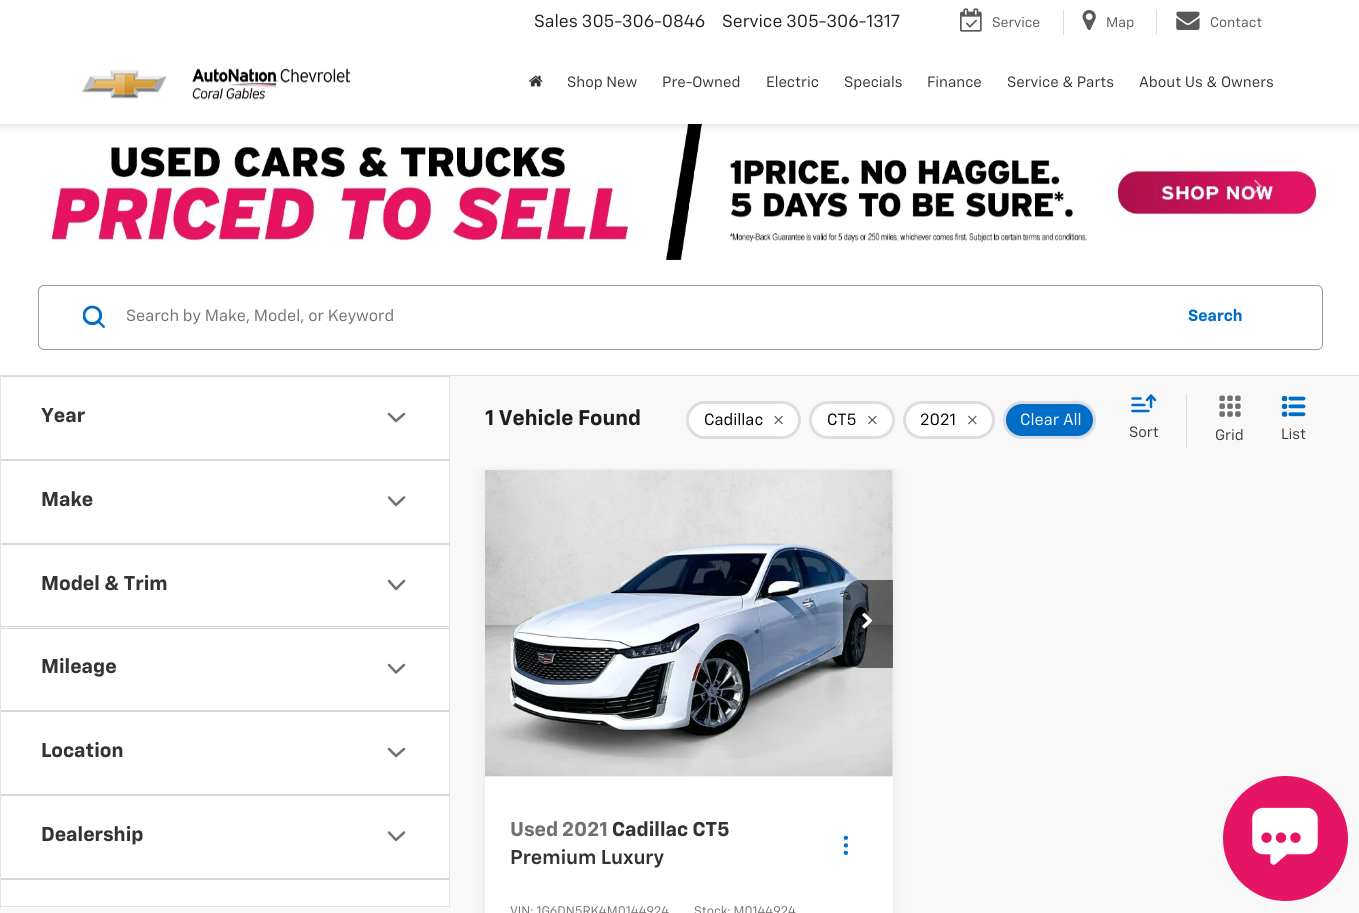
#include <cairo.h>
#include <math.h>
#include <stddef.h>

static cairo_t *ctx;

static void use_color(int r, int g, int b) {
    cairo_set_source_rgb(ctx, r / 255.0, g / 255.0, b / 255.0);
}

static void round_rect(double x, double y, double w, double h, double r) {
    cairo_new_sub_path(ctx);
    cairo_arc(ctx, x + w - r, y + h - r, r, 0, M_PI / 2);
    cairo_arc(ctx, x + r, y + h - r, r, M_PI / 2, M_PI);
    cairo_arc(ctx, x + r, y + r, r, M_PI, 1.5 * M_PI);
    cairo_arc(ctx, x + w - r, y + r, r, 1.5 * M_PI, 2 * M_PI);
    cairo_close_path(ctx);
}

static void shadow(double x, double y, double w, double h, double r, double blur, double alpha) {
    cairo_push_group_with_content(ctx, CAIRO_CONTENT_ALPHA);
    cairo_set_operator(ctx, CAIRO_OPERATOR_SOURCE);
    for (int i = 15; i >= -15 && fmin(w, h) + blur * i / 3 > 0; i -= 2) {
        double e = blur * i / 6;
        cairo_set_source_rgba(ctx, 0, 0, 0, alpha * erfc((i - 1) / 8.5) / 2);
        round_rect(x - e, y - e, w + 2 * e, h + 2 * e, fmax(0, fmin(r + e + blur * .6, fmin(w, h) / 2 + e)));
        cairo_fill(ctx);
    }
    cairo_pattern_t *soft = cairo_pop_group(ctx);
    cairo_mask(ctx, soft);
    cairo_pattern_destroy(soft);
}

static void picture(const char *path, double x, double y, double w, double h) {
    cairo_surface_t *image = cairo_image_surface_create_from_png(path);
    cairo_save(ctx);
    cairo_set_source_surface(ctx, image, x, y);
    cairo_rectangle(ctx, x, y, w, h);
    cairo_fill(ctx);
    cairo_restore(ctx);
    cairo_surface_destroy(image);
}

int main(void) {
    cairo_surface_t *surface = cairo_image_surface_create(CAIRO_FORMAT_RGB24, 1359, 913);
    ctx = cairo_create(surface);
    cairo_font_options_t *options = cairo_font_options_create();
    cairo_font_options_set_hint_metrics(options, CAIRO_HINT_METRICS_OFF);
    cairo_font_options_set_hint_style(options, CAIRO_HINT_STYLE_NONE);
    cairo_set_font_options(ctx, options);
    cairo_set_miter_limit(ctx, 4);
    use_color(255, 255, 255);
    cairo_paint(ctx);
    picture("img7.png", 50, 124, 1267, 136);
    use_color(0, 0, 0);
    shadow(0, 0, 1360, 124, 0, 5, 0.2);
    use_color(255, 255, 255);
    cairo_rectangle(ctx, 0, 0, 1359, 124);
    cairo_fill(ctx);
    cairo_select_font_face(ctx, "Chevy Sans", CAIRO_FONT_SLANT_NORMAL, CAIRO_FONT_WEIGHT_NORMAL);
    cairo_set_font_size(ctx, 17.5);
    use_color(30, 30, 30);
    cairo_move_to(ctx, 534, 27);
    cairo_show_text(ctx, "Sales 305-306-0846");
    cairo_move_to(ctx, 722, 27);
    cairo_show_text(ctx, "Service 305-306-1317");
    picture("img1.png", 960, 8, 22, 24);
    cairo_set_font_size(ctx, 14);
    use_color(89, 89, 89);
    cairo_move_to(ctx, 992, 27);
    cairo_show_text(ctx, "Service");
    use_color(221, 221, 221);
    cairo_rectangle(ctx, 1063, 10, 1, 25);
    cairo_fill(ctx);
    picture("img2.png", 1082, 10, 14, 20);
    use_color(89, 89, 89);
    cairo_move_to(ctx, 1106, 27);
    cairo_show_text(ctx, "Map");
    use_color(221, 221, 221);
    cairo_rectangle(ctx, 1156, 10, 1, 25);
    cairo_fill(ctx);
    picture("img3.png", 1176, 11, 24, 19);
    use_color(89, 89, 89);
    cairo_move_to(ctx, 1210, 27);
    cairo_show_text(ctx, "Contact");
    picture("img4.png", 82, 70, 84, 29);
    picture("img5.png", 192, 68, 158, 32);
    picture("img6.png", 529, 75, 14, 12);
    cairo_set_font_size(ctx, 15);
    use_color(51, 51, 51);
    cairo_move_to(ctx, 567, 87);
    cairo_show_text(ctx, "Shop New");
    cairo_move_to(ctx, 662, 87);
    cairo_show_text(ctx, "Pre-Owned");
    cairo_move_to(ctx, 766, 87);
    cairo_show_text(ctx, "Electric");
    cairo_move_to(ctx, 844, 87);
    cairo_show_text(ctx, "Specials");
    cairo_move_to(ctx, 927, 87);
    cairo_show_text(ctx, "Finance");
    cairo_move_to(ctx, 1007, 87);
    cairo_show_text(ctx, "Service & Parts");
    cairo_move_to(ctx, 1139, 87);
    cairo_show_text(ctx, "About Us & Owners");
    picture("img8.png", 1254, 179, 8, 15);
    cairo_arc(ctx, 697, 206, 7.5, 0, 2 * M_PI);
    use_color(255, 255, 255);
    cairo_set_line_width(ctx, 1);
    cairo_stroke(ctx);
    use_color(248, 248, 248);
    cairo_rectangle(ctx, 0, 468, 1359, 445);
    cairo_fill(ctx);
    use_color(227, 227, 227);
    cairo_rectangle(ctx, 0, 375, 1359, 1);
    cairo_fill(ctx);
    round_rect(38.5, 285.5, 1284, 64, 5.5);
    use_color(155, 155, 155);
    cairo_stroke(ctx);
    picture("img9.png", 83, 305, 22, 23);
    cairo_set_font_size(ctx, 16.25);
    use_color(112, 112, 112);
    cairo_move_to(ctx, 126, 321);
    cairo_show_text(ctx, "Search by Make, Model, or Keyword");
    cairo_select_font_face(ctx, "Chevy Sans", CAIRO_FONT_SLANT_NORMAL, CAIRO_FONT_WEIGHT_BOLD);
    use_color(0, 109, 199);
    cairo_move_to(ctx, 1188, 321);
    cairo_show_text(ctx, "Search");
    use_color(0, 0, 0);
    shadow(485, 470, 408, 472, 0, 9.5, 0.07);
    use_color(248, 248, 248);
    cairo_rectangle(ctx, 450, 376, 909, 92);
    cairo_fill(ctx);
    cairo_set_font_size(ctx, 21.25);
    use_color(30, 30, 30);
    cairo_move_to(ctx, 485, 425);
    cairo_show_text(ctx, "1 Vehicle Found");
    use_color(255, 255, 255);
    round_rect(687.5, 402.5, 112, 35, 17.5);
    cairo_fill_preserve(ctx);
    use_color(220, 220, 226);
    cairo_set_line_width(ctx, 3);
    cairo_stroke(ctx);
    cairo_select_font_face(ctx, "Chevy Sans", CAIRO_FONT_SLANT_NORMAL, CAIRO_FONT_WEIGHT_NORMAL);
    cairo_set_font_size(ctx, 16.25);
    use_color(0, 0, 0);
    cairo_move_to(ctx, 704, 425);
    cairo_show_text(ctx, "Cadillac");
    picture("img10.png", 774, 415, 9, 10);
    use_color(255, 255, 255);
    round_rect(810.5, 402.5, 83, 35, 17.5);
    cairo_fill_preserve(ctx);
    use_color(220, 220, 226);
    cairo_stroke(ctx);
    use_color(0, 0, 0);
    cairo_move_to(ctx, 827, 425);
    cairo_show_text(ctx, "CT5");
    picture("img11.png", 868, 415, 9, 10);
    use_color(255, 255, 255);
    round_rect(904.5, 402.5, 89, 35, 17.5);
    cairo_fill_preserve(ctx);
    use_color(220, 220, 226);
    cairo_stroke(ctx);
    use_color(0, 0, 0);
    cairo_move_to(ctx, 920, 425);
    cairo_show_text(ctx, "2021");
    picture("img11.png", 968, 415, 9, 10);
    use_color(0, 109, 199);
    round_rect(1004.5, 402.5, 90, 35, 17.5);
    cairo_fill_preserve(ctx);
    use_color(220, 220, 226);
    cairo_stroke(ctx);
    use_color(255, 255, 255);
    cairo_move_to(ctx, 1020, 425);
    cairo_show_text(ctx, "Clear All");
    cairo_new_path(ctx);
    cairo_move_to(ctx, 1132.5, 411);
    cairo_line_to(ctx, 1148.5, 411);
    cairo_move_to(ctx, 1132.5, 405);
    cairo_line_to(ctx, 1144.5, 405);
    cairo_move_to(ctx, 1132.5, 398.5);
    cairo_line_to(ctx, 1140.5, 398.5);
    cairo_move_to(ctx, 1151, 407);
    cairo_line_to(ctx, 1151, 395.5);
    cairo_move_to(ctx, 1151, 395.5);
    cairo_line_to(ctx, 1155, 400);
    cairo_move_to(ctx, 1151, 395.5);
    cairo_line_to(ctx, 1147, 400);
    use_color(0, 109, 199);
    cairo_set_line_width(ctx, 2.5);
    cairo_set_line_cap(ctx, CAIRO_LINE_CAP_ROUND);
    cairo_set_line_join(ctx, CAIRO_LINE_JOIN_ROUND);
    cairo_stroke(ctx);
    cairo_set_font_size(ctx, 15);
    use_color(59, 59, 59);
    cairo_move_to(ctx, 1129, 437);
    cairo_show_text(ctx, "Sort");
    use_color(220, 220, 226);
    cairo_rectangle(ctx, 1186, 394, 1, 54);
    cairo_fill(ctx);
    picture("img12.png", 1219, 395, 22, 23);
    use_color(59, 59, 59);
    cairo_move_to(ctx, 1215, 440);
    cairo_show_text(ctx, "Grid");
    picture("img13.png", 1281, 396, 25, 21);
    cairo_move_to(ctx, 1281, 439);
    cairo_show_text(ctx, "List");
    use_color(255, 255, 255);
    cairo_rectangle(ctx, 1, 468, 448, 440);
    cairo_fill(ctx);
    use_color(227, 227, 227);
    cairo_rectangle(ctx, 449, 376, 1, 532);
    cairo_fill(ctx);
    cairo_rectangle(ctx, 0, 906, 450, 1);
    cairo_fill(ctx);
    cairo_rectangle(ctx, 0, 376, 1, 532);
    cairo_fill(ctx);
    use_color(216, 216, 216);
    cairo_rectangle(ctx, 1, 376, 448, 1);
    cairo_fill(ctx);
    cairo_rectangle(ctx, 1, 459, 448, 2);
    cairo_fill(ctx);
    cairo_select_font_face(ctx, "Chevy Sans", CAIRO_FONT_SLANT_NORMAL, CAIRO_FONT_WEIGHT_BOLD);
    cairo_set_font_size(ctx, 20);
    use_color(51, 51, 51);
    cairo_move_to(ctx, 41, 422);
    cairo_show_text(ctx, "Year");
    cairo_new_path(ctx);
    cairo_move_to(ctx, 389, 414);
    cairo_line_to(ctx, 396, 421);
    cairo_line_to(ctx, 404, 414);
    use_color(112, 112, 112);
    cairo_stroke(ctx);
    use_color(216, 216, 216);
    cairo_rectangle(ctx, 1, 543, 448, 2);
    cairo_fill(ctx);
    use_color(51, 51, 51);
    cairo_move_to(ctx, 41, 506);
    cairo_show_text(ctx, "Make");
    cairo_new_path(ctx);
    cairo_move_to(ctx, 389, 497.5);
    cairo_line_to(ctx, 396, 505);
    cairo_line_to(ctx, 404, 497.5);
    use_color(112, 112, 112);
    cairo_stroke(ctx);
    use_color(216, 216, 216);
    cairo_rectangle(ctx, 1, 626, 448, 1);
    cairo_fill(ctx);
    use_color(51, 51, 51);
    cairo_move_to(ctx, 41, 590);
    cairo_show_text(ctx, "Model & Trim");
    cairo_new_path(ctx);
    cairo_move_to(ctx, 389, 581);
    cairo_line_to(ctx, 396, 589);
    cairo_line_to(ctx, 404, 581);
    use_color(112, 112, 112);
    cairo_stroke(ctx);
    use_color(216, 216, 216);
    cairo_rectangle(ctx, 1, 628, 448, 1);
    cairo_fill(ctx);
    cairo_rectangle(ctx, 1, 710, 448, 2);
    cairo_fill(ctx);
    use_color(51, 51, 51);
    cairo_move_to(ctx, 41, 673);
    cairo_show_text(ctx, "Mileage");
    cairo_new_path(ctx);
    cairo_move_to(ctx, 389, 665);
    cairo_line_to(ctx, 396, 672.5);
    cairo_line_to(ctx, 404, 665);
    use_color(112, 112, 112);
    cairo_stroke(ctx);
    use_color(216, 216, 216);
    cairo_rectangle(ctx, 1, 794, 448, 2);
    cairo_fill(ctx);
    use_color(51, 51, 51);
    cairo_move_to(ctx, 41, 757);
    cairo_show_text(ctx, "Location");
    cairo_new_path(ctx);
    cairo_move_to(ctx, 389, 749);
    cairo_line_to(ctx, 396, 756);
    cairo_line_to(ctx, 404, 749);
    use_color(112, 112, 112);
    cairo_stroke(ctx);
    use_color(216, 216, 216);
    cairo_rectangle(ctx, 1, 878, 448, 2);
    cairo_fill(ctx);
    use_color(51, 51, 51);
    cairo_move_to(ctx, 41, 841);
    cairo_show_text(ctx, "Dealership");
    cairo_new_path(ctx);
    cairo_move_to(ctx, 389, 832.5);
    cairo_line_to(ctx, 396, 840);
    cairo_line_to(ctx, 404, 832.5);
    use_color(112, 112, 112);
    cairo_stroke(ctx);
    use_color(255, 255, 255);
    cairo_rectangle(ctx, 485, 470, 408, 443);
    cairo_fill(ctx);
    picture("img14.png", 485, 470, 408, 307);
    picture("img15.png", 485, 470, 408, 307);
    cairo_set_source_rgba(ctx, 0, 0, 0, 0.55);
    cairo_new_path(ctx);
    cairo_move_to(ctx, 861, 580);
    cairo_line_to(ctx, 893, 580);
    cairo_line_to(ctx, 893, 668);
    cairo_line_to(ctx, 861, 668);
    cairo_curve_to(ctx, 851, 668, 843, 660, 843, 650);
    cairo_line_to(ctx, 843, 598);
    cairo_curve_to(ctx, 843, 588, 851, 580, 861, 580);
    cairo_close_path(ctx);
    cairo_fill(ctx);
    picture("img16.png", 862, 612, 11, 17);
    use_color(112, 112, 112);
    cairo_move_to(ctx, 510, 836);
    cairo_show_text(ctx, "Used");
    cairo_move_to(ctx, 562, 836);
    cairo_show_text(ctx, "2021");
    use_color(51, 51, 51);
    cairo_move_to(ctx, 612, 836);
    cairo_show_text(ctx, "Cadillac CT5");
    cairo_select_font_face(ctx, "Chevy Sans SemiBold", CAIRO_FONT_SLANT_NORMAL, CAIRO_FONT_WEIGHT_NORMAL);
    cairo_move_to(ctx, 510, 864);
    cairo_show_text(ctx, "Premium Luxury");
    picture("img17.png", 843, 835, 5, 5);
    picture("img18.png", 843, 843, 5, 5);
    picture("img17.png", 843, 850, 5, 5);
    cairo_select_font_face(ctx, "Chevy Sans", CAIRO_FONT_SLANT_NORMAL, CAIRO_FONT_WEIGHT_NORMAL);
    cairo_set_font_size(ctx, 12.5);
    use_color(112, 112, 112);
    cairo_move_to(ctx, 510, 915);
    cairo_show_text(ctx, "VIN: 1G6DN5RK4M0144924");
    cairo_move_to(ctx, 694, 915);
    cairo_show_text(ctx, "Stock: M0144924");
    use_color(230, 20, 100);
    cairo_new_path(ctx);
    cairo_arc(ctx, 1285.5, 838.5, 62.5, 0, 2 * M_PI);
    cairo_fill(ctx);
    picture("img19.png", 1252, 807, 66, 58);
    cairo_surface_write_to_png(surface, "result.png");
    cairo_font_options_destroy(options);
    cairo_destroy(ctx);
    cairo_surface_destroy(surface);
    return 0;
}
